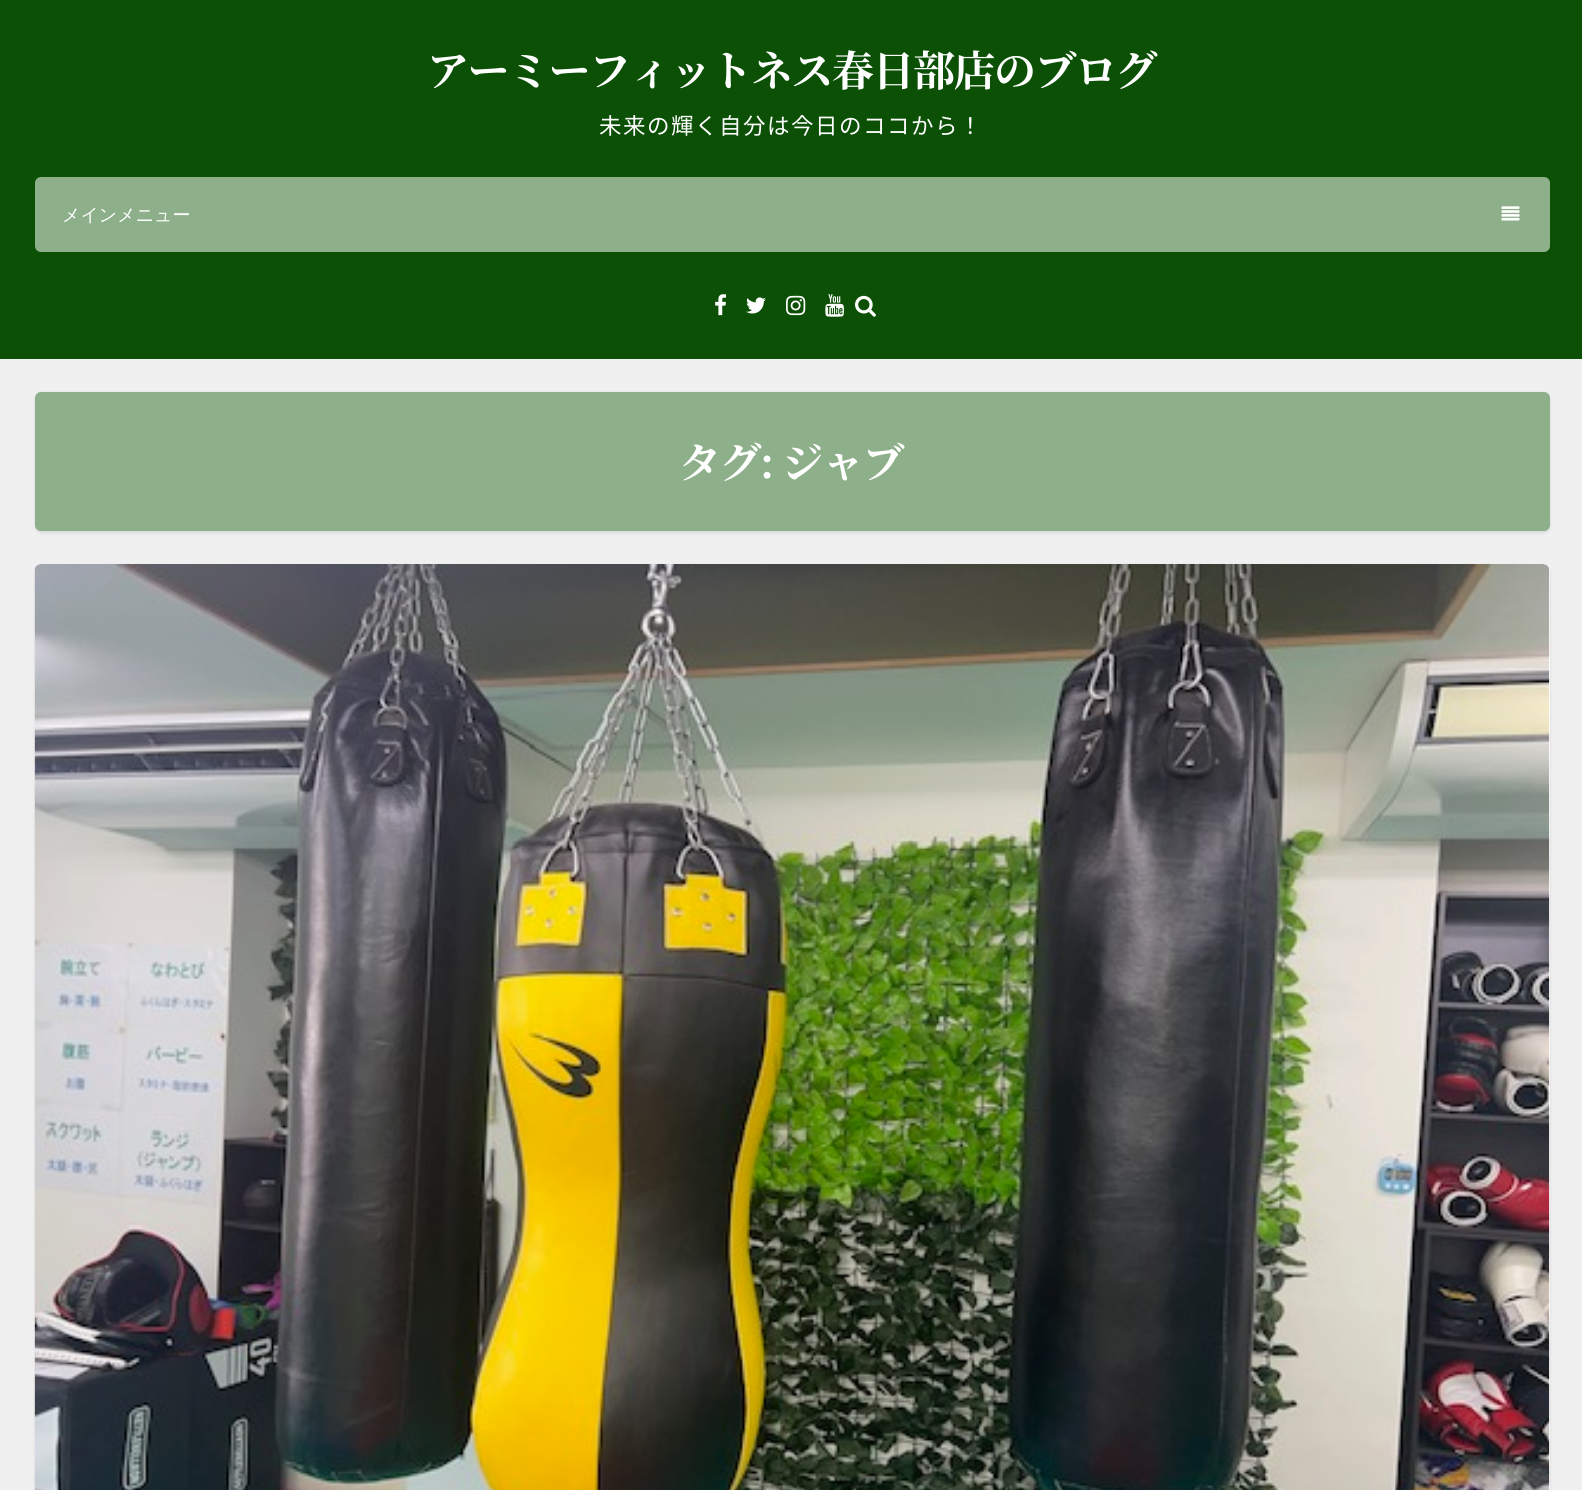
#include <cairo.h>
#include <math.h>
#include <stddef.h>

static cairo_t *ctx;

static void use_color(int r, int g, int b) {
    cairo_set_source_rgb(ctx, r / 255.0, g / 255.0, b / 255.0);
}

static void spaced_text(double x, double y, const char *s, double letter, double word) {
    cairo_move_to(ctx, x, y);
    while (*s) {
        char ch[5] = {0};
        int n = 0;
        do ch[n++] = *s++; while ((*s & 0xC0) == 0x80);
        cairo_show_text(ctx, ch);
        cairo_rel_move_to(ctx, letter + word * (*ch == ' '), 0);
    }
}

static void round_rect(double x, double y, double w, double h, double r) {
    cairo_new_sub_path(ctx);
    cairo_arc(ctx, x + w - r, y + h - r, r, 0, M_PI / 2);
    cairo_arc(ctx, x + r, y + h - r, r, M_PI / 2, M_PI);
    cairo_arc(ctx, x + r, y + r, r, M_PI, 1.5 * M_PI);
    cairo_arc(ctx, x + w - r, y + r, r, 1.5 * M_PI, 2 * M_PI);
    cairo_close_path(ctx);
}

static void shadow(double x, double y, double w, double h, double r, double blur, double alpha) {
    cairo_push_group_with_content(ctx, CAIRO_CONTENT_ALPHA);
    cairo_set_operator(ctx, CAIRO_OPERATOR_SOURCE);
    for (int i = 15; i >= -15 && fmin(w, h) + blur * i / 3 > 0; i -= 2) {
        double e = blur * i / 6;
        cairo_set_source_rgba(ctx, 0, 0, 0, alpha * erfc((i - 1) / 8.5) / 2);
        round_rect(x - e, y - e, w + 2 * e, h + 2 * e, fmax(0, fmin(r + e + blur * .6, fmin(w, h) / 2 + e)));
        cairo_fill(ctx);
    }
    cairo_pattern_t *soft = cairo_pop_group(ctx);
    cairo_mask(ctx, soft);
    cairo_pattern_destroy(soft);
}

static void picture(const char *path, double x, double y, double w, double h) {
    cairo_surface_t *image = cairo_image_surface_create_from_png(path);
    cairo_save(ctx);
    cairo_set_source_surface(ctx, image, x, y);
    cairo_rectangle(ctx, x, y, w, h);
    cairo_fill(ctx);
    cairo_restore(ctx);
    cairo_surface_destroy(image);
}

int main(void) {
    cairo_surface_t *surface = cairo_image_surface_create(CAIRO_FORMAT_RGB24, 1582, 1490);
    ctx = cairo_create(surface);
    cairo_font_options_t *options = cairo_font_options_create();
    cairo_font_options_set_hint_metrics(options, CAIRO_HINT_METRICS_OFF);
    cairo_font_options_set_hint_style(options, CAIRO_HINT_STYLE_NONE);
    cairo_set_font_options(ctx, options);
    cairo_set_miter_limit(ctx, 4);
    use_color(240, 240, 240);
    cairo_paint(ctx);
    use_color(11, 80, 5);
    cairo_rectangle(ctx, 0, 0, 1582, 359);
    cairo_fill(ctx);
    cairo_select_font_face(ctx, "Noto Serif JP", CAIRO_FONT_SLANT_NORMAL, CAIRO_FONT_WEIGHT_BOLD);
    cairo_set_font_size(ctx, 42);
    use_color(255, 255, 255);
    spaced_text(427, 86, "アーミーフィットネス春日部店のブログ", -1.5, 0);
    cairo_select_font_face(ctx, "Noto Sans JP", CAIRO_FONT_SLANT_NORMAL, CAIRO_FONT_WEIGHT_NORMAL);
    cairo_set_font_size(ctx, 22.5);
    spaced_text(599, 134, "未来の輝く自分は今日のココから！", 1.5, 0);
    use_color(141, 175, 137);
    round_rect(35, 177, 1515, 75, 6);
    cairo_fill(ctx);
    cairo_select_font_face(ctx, "WenQuanYi Zen Hei Medium", CAIRO_FONT_SLANT_NORMAL, CAIRO_FONT_WEIGHT_NORMAL);
    cairo_set_font_size(ctx, 18);
    use_color(255, 255, 255);
    cairo_move_to(ctx, 62, 221);
    cairo_show_text(ctx, "メインメニュー");
    picture("img1.png", 1501, 206, 19, 15);
    picture("img2.png", 715, 294, 12, 22);
    picture("img3.png", 746, 297, 20, 17);
    picture("img4.png", 786, 295, 20, 21);
    picture("img5.png", 825, 294, 19, 23);
    picture("img6.png", 855, 295, 21, 22);
    use_color(0, 0, 0);
    shadow(35, 393, 1515, 140, 6, 1.5, 0.1);
    use_color(141, 175, 137);
    round_rect(35, 392, 1515, 139, 6);
    cairo_fill(ctx);
    cairo_select_font_face(ctx, "Noto Serif JP", CAIRO_FONT_SLANT_NORMAL, CAIRO_FONT_WEIGHT_BOLD);
    cairo_set_font_size(ctx, 42);
    use_color(255, 255, 255);
    spaced_text(679, 478, "タグ: ジャブ", -1.5, 0);
    use_color(0, 0, 0);
    shadow(35, 566, 1515, 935, 6, 1.5, 0.1);
    use_color(255, 255, 255);
    round_rect(35, 564, 1515, 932, 6);
    cairo_fill(ctx);
    picture("img7.png", 34, 564, 1516, 926);
    cairo_surface_write_to_png(surface, "result.png");
    cairo_font_options_destroy(options);
    cairo_destroy(ctx);
    cairo_surface_destroy(surface);
    return 0;
}
